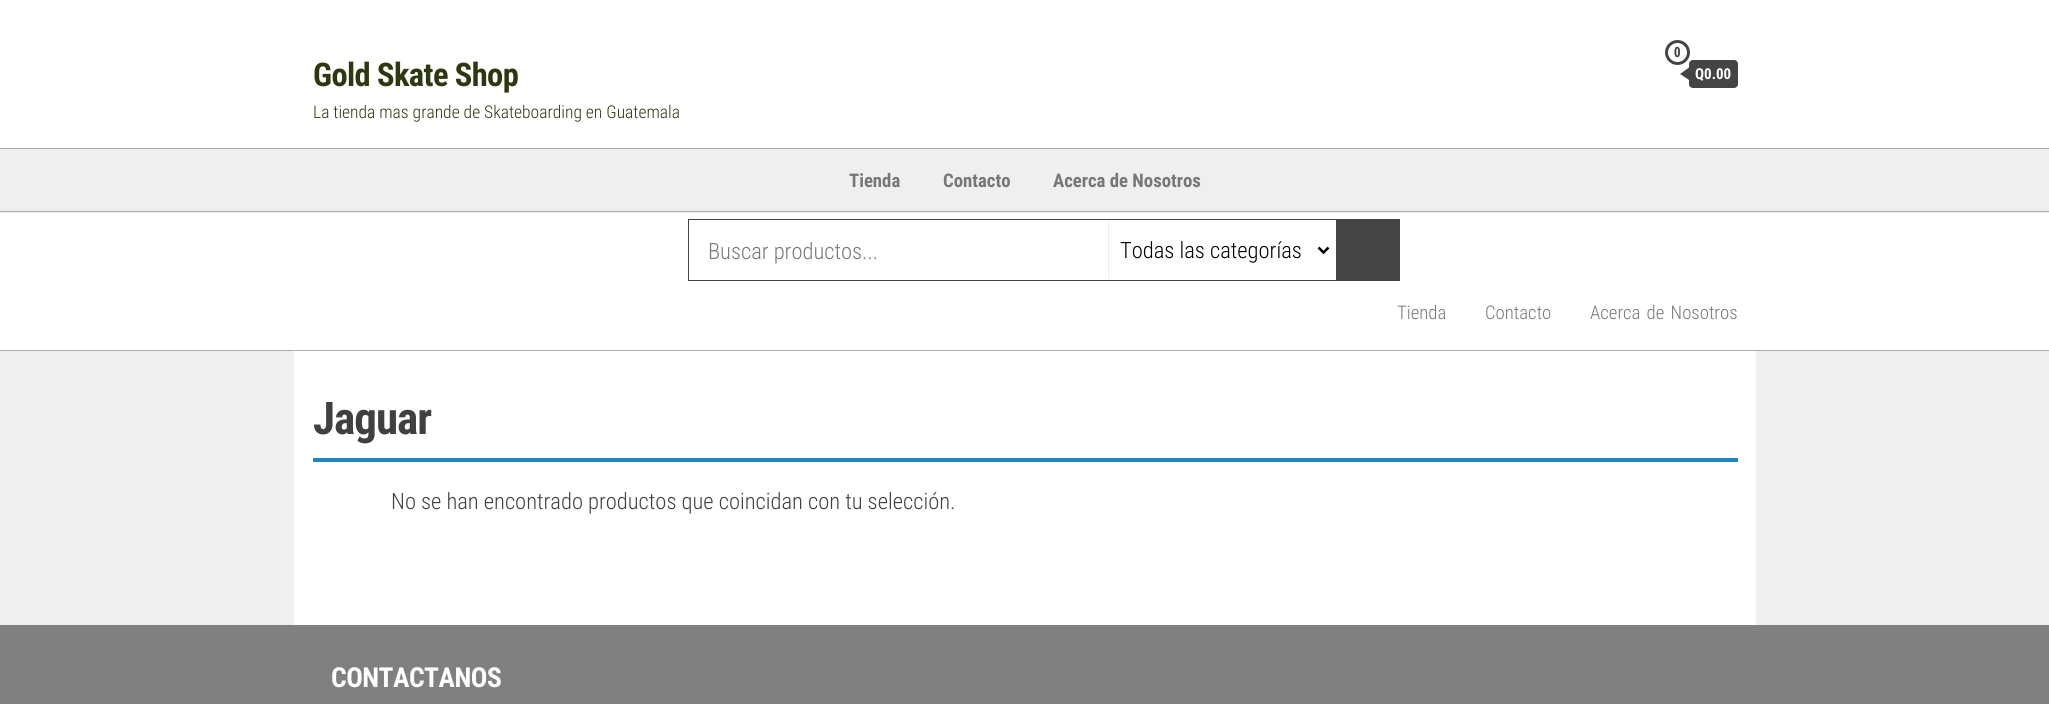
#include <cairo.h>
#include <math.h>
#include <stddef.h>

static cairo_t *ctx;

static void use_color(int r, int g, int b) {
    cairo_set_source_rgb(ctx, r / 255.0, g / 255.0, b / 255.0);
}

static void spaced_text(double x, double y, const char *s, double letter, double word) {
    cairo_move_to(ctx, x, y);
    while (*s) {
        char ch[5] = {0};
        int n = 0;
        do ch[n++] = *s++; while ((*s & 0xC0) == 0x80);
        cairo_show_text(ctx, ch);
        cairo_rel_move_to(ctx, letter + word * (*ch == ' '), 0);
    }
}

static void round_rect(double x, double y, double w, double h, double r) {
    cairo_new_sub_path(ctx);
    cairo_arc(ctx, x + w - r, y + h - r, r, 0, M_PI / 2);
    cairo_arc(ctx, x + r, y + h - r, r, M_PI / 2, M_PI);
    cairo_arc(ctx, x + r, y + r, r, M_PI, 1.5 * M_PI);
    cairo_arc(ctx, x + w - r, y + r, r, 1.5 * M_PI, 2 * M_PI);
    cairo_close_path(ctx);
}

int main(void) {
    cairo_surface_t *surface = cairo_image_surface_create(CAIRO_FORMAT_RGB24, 2049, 704);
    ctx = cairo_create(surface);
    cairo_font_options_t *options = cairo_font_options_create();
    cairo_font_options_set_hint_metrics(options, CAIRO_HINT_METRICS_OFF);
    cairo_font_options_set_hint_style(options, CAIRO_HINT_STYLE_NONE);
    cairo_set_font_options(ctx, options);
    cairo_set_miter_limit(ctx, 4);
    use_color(239, 239, 239);
    cairo_paint(ctx);
    use_color(255, 255, 255);
    cairo_rectangle(ctx, 0, 0, 2049, 148);
    cairo_fill(ctx);
    use_color(172, 172, 172);
    cairo_rectangle(ctx, 0, 148, 2049, 1);
    cairo_fill(ctx);
    cairo_select_font_face(ctx, "Roboto Condensed", CAIRO_FONT_SLANT_NORMAL, CAIRO_FONT_WEIGHT_BOLD);
    cairo_set_font_size(ctx, 32.5);
    use_color(46, 56, 16);
    spaced_text(313, 86, "Gold Skate Shop", -0.6, 0);
    cairo_select_font_face(ctx, "Roboto Condensed Light", CAIRO_FONT_SLANT_NORMAL, CAIRO_FONT_WEIGHT_NORMAL);
    cairo_set_font_size(ctx, 17.5);
    cairo_move_to(ctx, 313, 118);
    cairo_show_text(ctx, "La tienda mas grande de Skateboarding en Guatemala");
    cairo_new_path(ctx);
    cairo_arc(ctx, 1677.5, 52.5, 11, 0, 2 * M_PI);
    use_color(68, 68, 68);
    cairo_set_line_width(ctx, 3);
    cairo_stroke(ctx);
    cairo_select_font_face(ctx, "Open Sans Condensed", CAIRO_FONT_SLANT_NORMAL, CAIRO_FONT_WEIGHT_BOLD);
    cairo_set_font_size(ctx, 14);
    use_color(64, 64, 64);
    cairo_move_to(ctx, 1674, 57);
    cairo_show_text(ctx, "0");
    use_color(68, 68, 68);
    round_rect(1689, 60, 49, 28, 4);
    cairo_fill(ctx);
    cairo_new_path(ctx);
    cairo_move_to(ctx, 1689, 67.5);
    cairo_line_to(ctx, 1689, 80);
    cairo_line_to(ctx, 1680, 74);
    cairo_close_path(ctx);
    cairo_fill(ctx);
    cairo_select_font_face(ctx, "Roboto Condensed", CAIRO_FONT_SLANT_NORMAL, CAIRO_FONT_WEIGHT_BOLD);
    cairo_set_font_size(ctx, 15);
    use_color(255, 255, 255);
    cairo_move_to(ctx, 1695, 79);
    cairo_show_text(ctx, "Q0.00");
    use_color(172, 172, 172);
    cairo_rectangle(ctx, 0, 211, 2049, 1);
    cairo_fill(ctx);
    cairo_set_font_size(ctx, 18.75);
    use_color(119, 119, 119);
    cairo_move_to(ctx, 849, 187);
    cairo_show_text(ctx, "Tienda");
    cairo_move_to(ctx, 943, 187);
    cairo_show_text(ctx, "Contacto");
    cairo_move_to(ctx, 1053, 187);
    cairo_show_text(ctx, "Acerca de Nosotros");
    use_color(255, 255, 255);
    cairo_rectangle(ctx, 0, 213, 2049, 137);
    cairo_fill(ctx);
    use_color(172, 172, 172);
    cairo_rectangle(ctx, 0, 350, 2049, 1);
    cairo_fill(ctx);
    cairo_rectangle(ctx, 688.5, 219.5, 711, 61);
    use_color(68, 68, 68);
    cairo_set_line_width(ctx, 1);
    cairo_stroke(ctx);
    cairo_select_font_face(ctx, "Roboto Condensed Light", CAIRO_FONT_SLANT_NORMAL, CAIRO_FONT_WEIGHT_NORMAL);
    cairo_set_font_size(ctx, 22.5);
    use_color(119, 119, 119);
    cairo_move_to(ctx, 708, 259);
    cairo_show_text(ctx, "Buscar productos...");
    use_color(236, 236, 236);
    cairo_rectangle(ctx, 1108, 220, 1, 59);
    cairo_fill(ctx);
    cairo_new_path(ctx);
    cairo_move_to(ctx, 1318.5, 247.5);
    cairo_line_to(ctx, 1323.5, 252.5);
    cairo_line_to(ctx, 1328.5, 247.5);
    use_color(0, 0, 0);
    cairo_set_line_width(ctx, 2.5);
    cairo_stroke(ctx);
    cairo_move_to(ctx, 1120, 258);
    cairo_show_text(ctx, "Todas las categorías");
    use_color(68, 68, 68);
    cairo_rectangle(ctx, 1336, 220, 63, 60);
    cairo_fill(ctx);
    cairo_set_font_size(ctx, 18.75);
    use_color(119, 119, 119);
    cairo_move_to(ctx, 1397, 319);
    cairo_show_text(ctx, "Tienda");
    cairo_move_to(ctx, 1485, 319);
    cairo_show_text(ctx, "Contacto");
    spaced_text(1590, 319, "Acerca de Nosotros", 0, 2);
    use_color(255, 255, 255);
    cairo_rectangle(ctx, 294, 351, 1462, 274);
    cairo_fill(ctx);
    cairo_select_font_face(ctx, "Roboto Condensed", CAIRO_FONT_SLANT_NORMAL, CAIRO_FONT_WEIGHT_BOLD);
    cairo_set_font_size(ctx, 45);
    use_color(64, 64, 64);
    spaced_text(313, 434, "Jaguar", -1, 0);
    use_color(30, 133, 190);
    cairo_rectangle(ctx, 313, 458, 1425, 4);
    cairo_fill(ctx);
    cairo_select_font_face(ctx, "Roboto Condensed Light", CAIRO_FONT_SLANT_NORMAL, CAIRO_FONT_WEIGHT_NORMAL);
    cairo_set_font_size(ctx, 22.5);
    use_color(64, 64, 64);
    cairo_move_to(ctx, 391, 509);
    cairo_show_text(ctx, "No se han encontrado productos que coincidan con tu selección.");
    use_color(128, 128, 128);
    cairo_rectangle(ctx, 0, 625, 2049, 79);
    cairo_fill(ctx);
    cairo_select_font_face(ctx, "Roboto Condensed", CAIRO_FONT_SLANT_NORMAL, CAIRO_FONT_WEIGHT_BOLD);
    cairo_set_font_size(ctx, 27.5);
    use_color(255, 255, 255);
    spaced_text(331, 687, "CONTACTANOS", -0.5, 0);
    cairo_surface_write_to_png(surface, "result.png");
    cairo_font_options_destroy(options);
    cairo_destroy(ctx);
    cairo_surface_destroy(surface);
    return 0;
}
